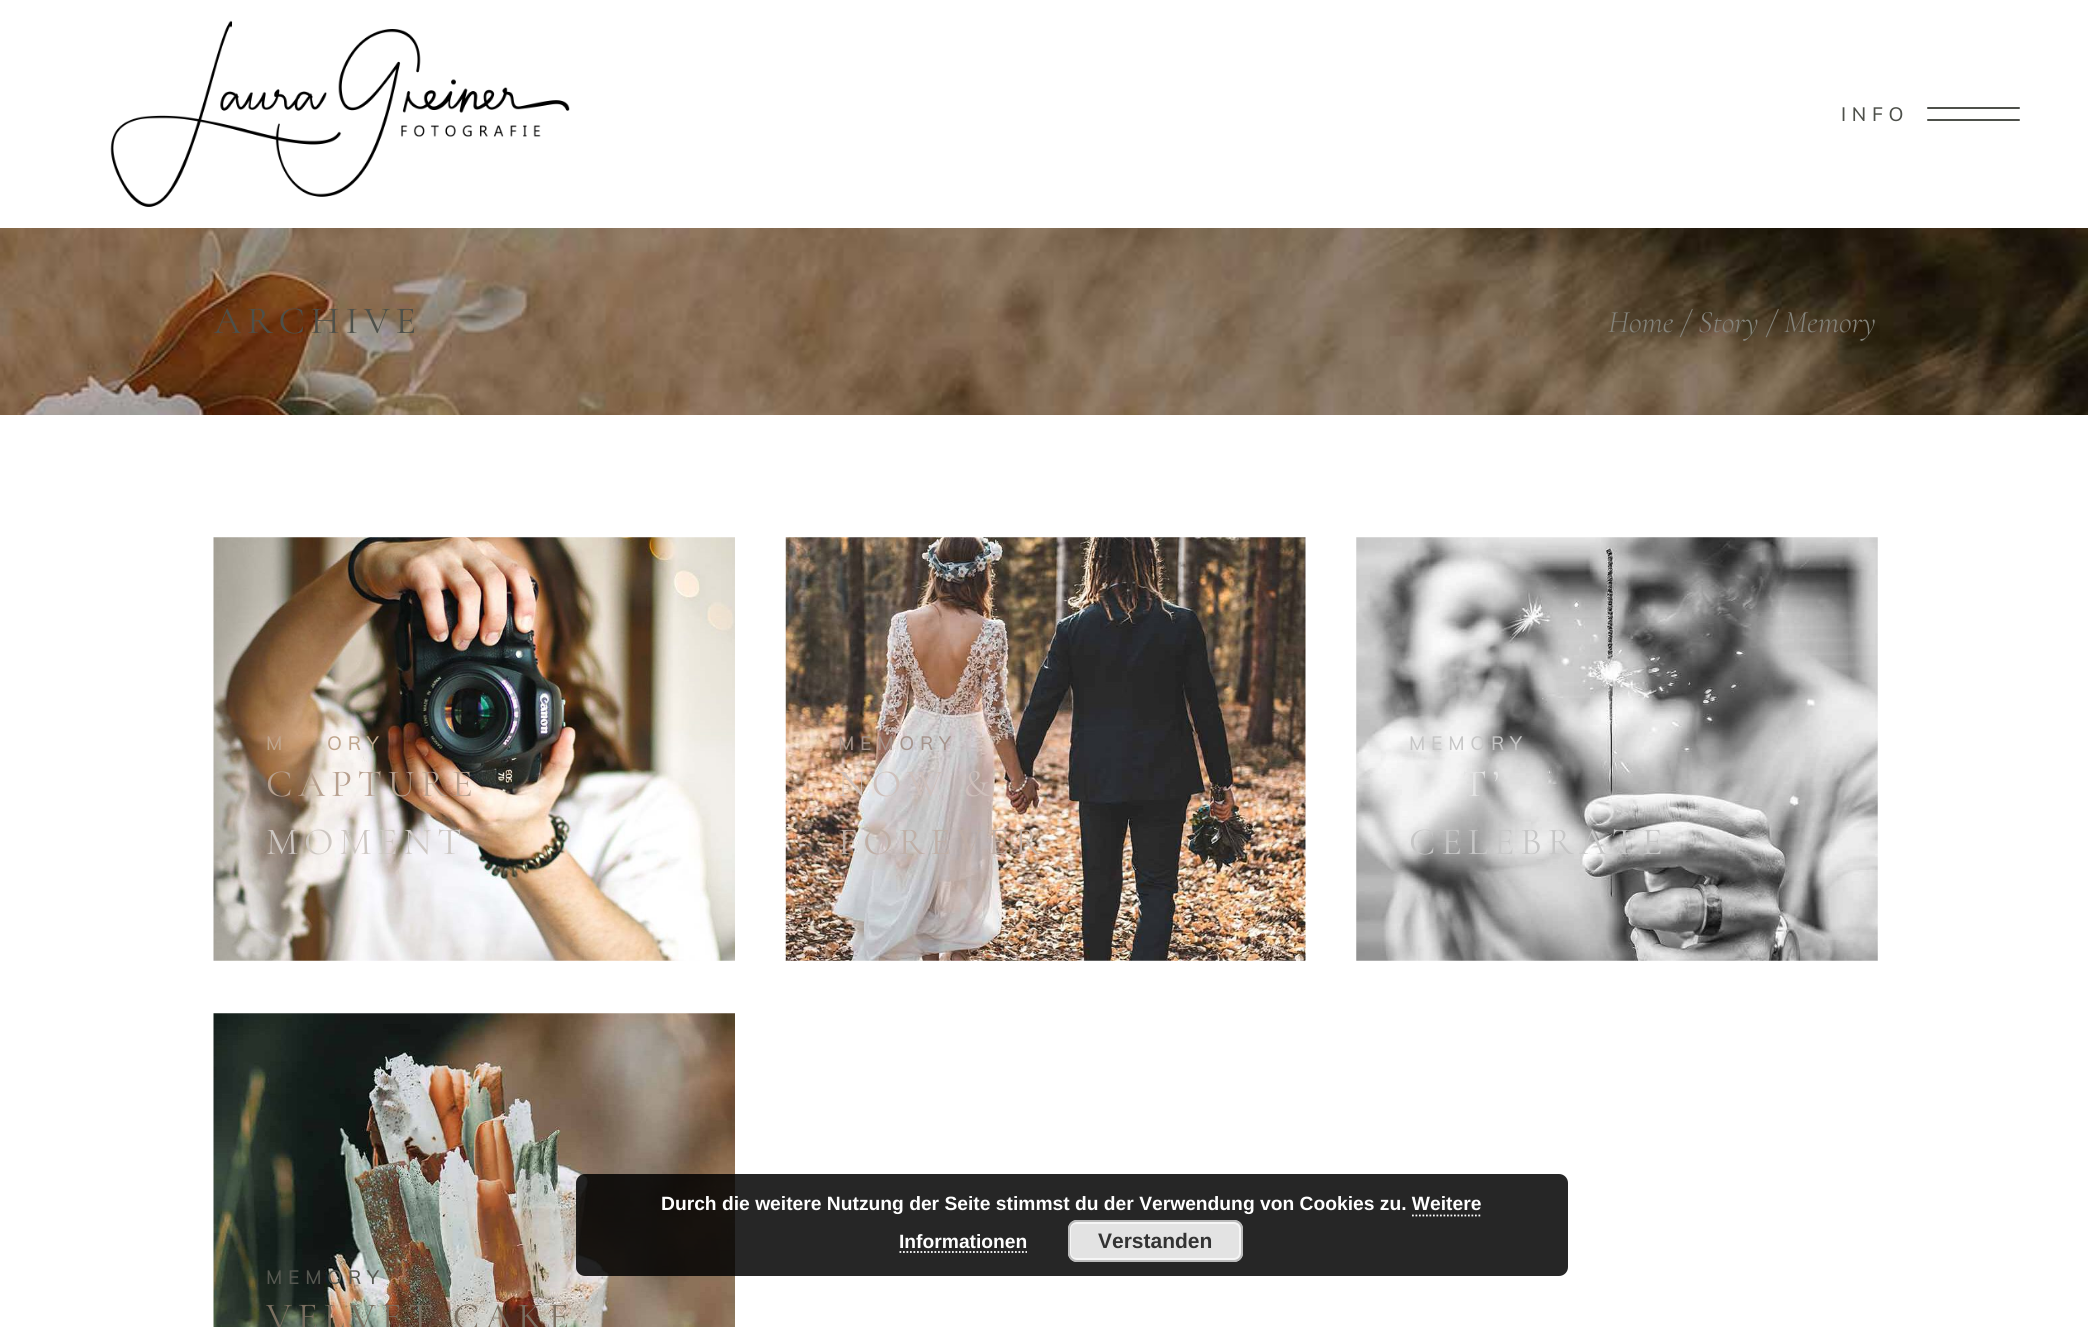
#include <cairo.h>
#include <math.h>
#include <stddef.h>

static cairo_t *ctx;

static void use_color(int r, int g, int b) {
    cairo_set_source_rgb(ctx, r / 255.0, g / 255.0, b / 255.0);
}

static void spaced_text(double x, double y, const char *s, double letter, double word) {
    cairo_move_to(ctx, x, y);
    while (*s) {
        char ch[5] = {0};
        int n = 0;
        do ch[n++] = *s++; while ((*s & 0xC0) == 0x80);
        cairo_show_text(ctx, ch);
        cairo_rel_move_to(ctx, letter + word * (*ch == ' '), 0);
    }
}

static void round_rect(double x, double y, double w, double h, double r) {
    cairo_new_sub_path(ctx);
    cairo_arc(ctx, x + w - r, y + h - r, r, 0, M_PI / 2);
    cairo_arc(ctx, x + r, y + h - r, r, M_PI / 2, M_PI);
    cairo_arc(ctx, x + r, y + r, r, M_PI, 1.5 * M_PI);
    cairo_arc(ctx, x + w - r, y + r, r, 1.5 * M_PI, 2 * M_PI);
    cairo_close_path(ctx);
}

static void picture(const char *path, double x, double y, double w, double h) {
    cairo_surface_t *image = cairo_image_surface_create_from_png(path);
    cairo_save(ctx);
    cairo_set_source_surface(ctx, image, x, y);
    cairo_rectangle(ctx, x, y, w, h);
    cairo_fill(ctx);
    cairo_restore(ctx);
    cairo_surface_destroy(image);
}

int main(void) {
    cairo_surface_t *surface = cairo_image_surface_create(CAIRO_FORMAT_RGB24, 2088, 1327);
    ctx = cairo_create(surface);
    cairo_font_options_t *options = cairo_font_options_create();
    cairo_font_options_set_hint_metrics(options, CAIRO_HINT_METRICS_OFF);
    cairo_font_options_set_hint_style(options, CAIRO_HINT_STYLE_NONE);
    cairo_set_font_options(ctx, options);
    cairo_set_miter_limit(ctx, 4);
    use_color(255, 255, 255);
    cairo_paint(ctx);
    picture("img1.png", 110, 20, 460, 187);
    cairo_select_font_face(ctx, "Muli Medium", CAIRO_FONT_SLANT_NORMAL, CAIRO_FONT_WEIGHT_NORMAL);
    cairo_set_font_size(ctx, 19.25);
    use_color(77, 80, 74);
    spaced_text(1841, 121, "INFO", 5.75, 0);
    round_rect(1927, 107, 93, 2, 1);
    cairo_fill(ctx);
    round_rect(1927, 119, 93, 2, 1);
    cairo_fill(ctx);
    picture("img2.png", 0, 228, 2088, 187);
    cairo_select_font_face(ctx, "Cormorant Garamond", CAIRO_FONT_SLANT_NORMAL, CAIRO_FONT_WEIGHT_NORMAL);
    cairo_set_font_size(ctx, 38.5);
    spaced_text(214, 333, "ARCHIVE", 5.75, 0);
    cairo_select_font_face(ctx, "Cormorant Garamond Light", CAIRO_FONT_SLANT_ITALIC, CAIRO_FONT_WEIGHT_NORMAL);
    cairo_set_font_size(ctx, 31.5);
    use_color(132, 132, 124);
    cairo_move_to(ctx, 1608, 332);
    cairo_show_text(ctx, "Home");
    cairo_move_to(ctx, 1681, 332);
    cairo_show_text(ctx, "/");
    cairo_move_to(ctx, 1698, 332);
    cairo_show_text(ctx, "Story");
    cairo_move_to(ctx, 1767, 332);
    cairo_show_text(ctx, "/");
    cairo_move_to(ctx, 1784, 332);
    cairo_show_text(ctx, "Memory");
    picture("img3.png", 213, 537, 522, 424);
    cairo_select_font_face(ctx, "Muli Medium", CAIRO_FONT_SLANT_NORMAL, CAIRO_FONT_WEIGHT_NORMAL);
    cairo_set_font_size(ctx, 19.25);
    use_color(191, 166, 142);
    spaced_text(266, 750, "M", 5.75, 0);
    spaced_text(327, 750, "ORY", 5.75, 0);
    cairo_select_font_face(ctx, "Cormorant Garamond", CAIRO_FONT_SLANT_NORMAL, CAIRO_FONT_WEIGHT_NORMAL);
    cairo_set_font_size(ctx, 38.5);
    use_color(183, 160, 143);
    spaced_text(266, 796, "CAPTURE", 5.75, 0);
    use_color(205, 199, 194);
    spaced_text(266, 854, "MOMENT", 5.75, 0);
    picture("img4.png", 785, 537, 521, 424);
    cairo_select_font_face(ctx, "Muli Medium", CAIRO_FONT_SLANT_NORMAL, CAIRO_FONT_WEIGHT_NORMAL);
    cairo_set_font_size(ctx, 19.25);
    use_color(165, 148, 140);
    spaced_text(838, 750, "MEMORY", 5.75, 0);
    cairo_select_font_face(ctx, "Cormorant Garamond", CAIRO_FONT_SLANT_NORMAL, CAIRO_FONT_WEIGHT_NORMAL);
    cairo_set_font_size(ctx, 38.5);
    use_color(206, 192, 187);
    spaced_text(838, 796, "NOW &", 5.75, 0);
    use_color(191, 175, 166);
    spaced_text(838, 854, "FOREVER", 5.75, 0);
    picture("img5.png", 1356, 537, 522, 424);
    cairo_select_font_face(ctx, "Muli Medium", CAIRO_FONT_SLANT_NORMAL, CAIRO_FONT_WEIGHT_NORMAL);
    cairo_set_font_size(ctx, 19.25);
    use_color(198, 198, 198);
    spaced_text(1409, 750, "MEMORY", 5.75, 0);
    cairo_select_font_face(ctx, "Cormorant Garamond", CAIRO_FONT_SLANT_NORMAL, CAIRO_FONT_WEIGHT_NORMAL);
    cairo_set_font_size(ctx, 38.5);
    use_color(228, 228, 228);
    spaced_text(1462, 796, "T’", 5.75, 0);
    use_color(198, 198, 198);
    spaced_text(1409, 854, "CELEBRATE", 5.75, 0);
    picture("img6.png", 213, 1013, 522, 314);
    cairo_select_font_face(ctx, "Muli Medium", CAIRO_FONT_SLANT_NORMAL, CAIRO_FONT_WEIGHT_NORMAL);
    cairo_set_font_size(ctx, 19.25);
    use_color(86, 88, 81);
    spaced_text(266, 1284, "MEMORY", 5.75, 0);
    cairo_select_font_face(ctx, "Cormorant Garamond", CAIRO_FONT_SLANT_NORMAL, CAIRO_FONT_WEIGHT_NORMAL);
    cairo_set_font_size(ctx, 38.5);
    use_color(122, 111, 97);
    spaced_text(266, 1329, "VELVET CAKE", 5.75, 0);
    cairo_set_source_rgba(ctx, 0, 0, 0, 0.85);
    round_rect(576, 1174, 992, 102, 9);
    cairo_fill(ctx);
    cairo_select_font_face(ctx, "Liberation Sans", CAIRO_FONT_SLANT_NORMAL, CAIRO_FONT_WEIGHT_BOLD);
    cairo_set_font_size(ctx, 19.25);
    use_color(255, 255, 255);
    cairo_move_to(ctx, 661, 1210);
    cairo_show_text(ctx, "Durch die weitere Nutzung der Seite stimmst du der Verwendung von Cookies zu. Weitere");
    cairo_move_to(ctx, 899, 1248);
    cairo_show_text(ctx, "Informationen");
    cairo_new_path(ctx);
    cairo_move_to(ctx, 1412, 1215.5);
    cairo_line_to(ctx, 1480.5, 1215.5);
    cairo_set_line_width(ctx, 1.8);
    cairo_set_dash(ctx, (double[]){1.75, 1.75}, 2, 0);
    cairo_stroke(ctx);
    cairo_new_path(ctx);
    cairo_move_to(ctx, 899.5, 1252);
    cairo_line_to(ctx, 1027, 1252);
    cairo_stroke(ctx);
    use_color(227, 227, 227);
    round_rect(1068, 1220, 175, 42, 9);
    cairo_fill(ctx);
    round_rect(1070, 1223, 170, 36, 6);
    use_color(246, 246, 246);
    cairo_set_line_width(ctx, 2);
    cairo_set_dash(ctx, NULL, 0, 0);
    cairo_stroke(ctx);
    round_rect(1069, 1221, 173, 40, 8);
    use_color(187, 187, 187);
    cairo_stroke(ctx);
    cairo_set_font_size(ctx, 21);
    use_color(51, 51, 51);
    cairo_move_to(ctx, 1098, 1248);
    cairo_show_text(ctx, "Verstanden");
    cairo_surface_write_to_png(surface, "result.png");
    cairo_font_options_destroy(options);
    cairo_destroy(ctx);
    cairo_surface_destroy(surface);
    return 0;
}
